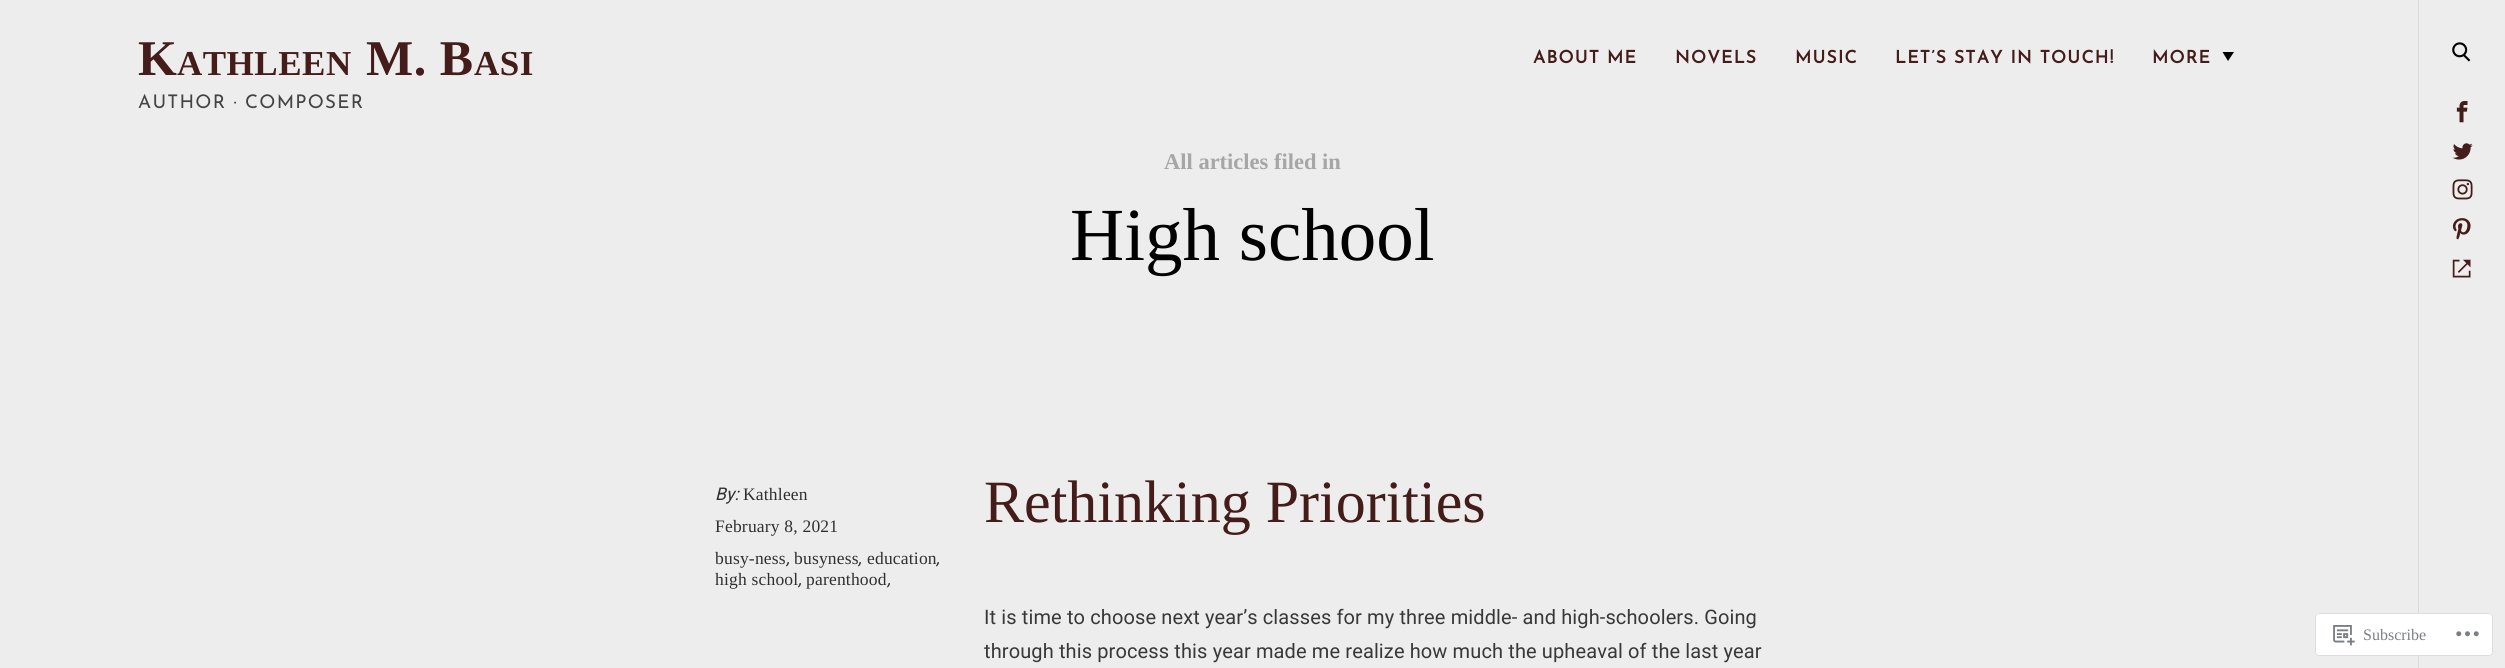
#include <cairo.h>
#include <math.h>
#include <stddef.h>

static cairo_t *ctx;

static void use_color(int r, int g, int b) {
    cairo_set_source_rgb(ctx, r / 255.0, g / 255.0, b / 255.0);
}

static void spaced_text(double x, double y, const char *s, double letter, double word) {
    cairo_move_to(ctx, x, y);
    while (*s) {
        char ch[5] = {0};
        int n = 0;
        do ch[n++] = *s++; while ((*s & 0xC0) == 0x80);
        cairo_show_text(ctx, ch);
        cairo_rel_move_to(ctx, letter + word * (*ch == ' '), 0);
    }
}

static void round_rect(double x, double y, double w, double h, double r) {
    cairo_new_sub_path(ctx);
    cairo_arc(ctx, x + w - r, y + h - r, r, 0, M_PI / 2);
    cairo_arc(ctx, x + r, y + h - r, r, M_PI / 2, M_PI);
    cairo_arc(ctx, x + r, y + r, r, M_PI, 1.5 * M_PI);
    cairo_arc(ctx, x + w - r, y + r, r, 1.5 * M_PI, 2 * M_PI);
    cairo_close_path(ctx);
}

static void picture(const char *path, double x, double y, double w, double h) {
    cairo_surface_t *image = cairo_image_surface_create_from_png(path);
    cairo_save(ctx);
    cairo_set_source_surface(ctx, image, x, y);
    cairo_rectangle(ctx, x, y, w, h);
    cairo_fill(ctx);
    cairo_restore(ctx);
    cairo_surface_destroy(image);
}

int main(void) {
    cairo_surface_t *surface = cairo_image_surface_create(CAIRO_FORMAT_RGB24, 2505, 668);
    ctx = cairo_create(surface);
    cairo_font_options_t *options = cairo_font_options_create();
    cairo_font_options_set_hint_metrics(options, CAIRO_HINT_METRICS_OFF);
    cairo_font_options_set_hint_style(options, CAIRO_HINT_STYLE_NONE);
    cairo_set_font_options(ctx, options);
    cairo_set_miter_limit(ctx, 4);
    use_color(237, 237, 237);
    cairo_paint(ctx);
    cairo_select_font_face(ctx, "Liberation Serif", CAIRO_FONT_SLANT_NORMAL, CAIRO_FONT_WEIGHT_BOLD);
    cairo_set_font_size(ctx, 50);
    use_color(68, 28, 25);
    spaced_text(138, 75, "K", 0.5, 0);
    cairo_set_font_size(ctx, 35);
    spaced_text(177, 75, "ATHLEEN", 0.5, 0);
    cairo_set_font_size(ctx, 50);
    spaced_text(366, 75, "M. B", 0.5, 0);
    cairo_set_font_size(ctx, 35);
    spaced_text(474, 75, "ASI", 0.5, 0);
    cairo_select_font_face(ctx, "Josefin Sans Thin", CAIRO_FONT_SLANT_NORMAL, CAIRO_FONT_WEIGHT_NORMAL);
    cairo_set_font_size(ctx, 18.75);
    use_color(68, 68, 68);
    spaced_text(138, 108, "AUTHOR · COMPOSER", 1.25, 0);
    cairo_select_font_face(ctx, "Josefin Sans", CAIRO_FONT_SLANT_NORMAL, CAIRO_FONT_WEIGHT_BOLD);
    cairo_set_font_size(ctx, 17.5);
    use_color(68, 28, 25);
    spaced_text(1533, 63, "ABOUT ME", 1.25, 0);
    spaced_text(1675, 63, "NOVELS", 1.25, 0);
    spaced_text(1795, 63, "MUSIC", 1.25, 0);
    spaced_text(1895, 63, "LET’S STAY IN TOUCH!", 1.25, 0);
    spaced_text(2152, 63, "MORE", 1.25, 0);
    use_color(0, 0, 0);
    cairo_new_path(ctx);
    cairo_move_to(ctx, 2234, 52);
    cairo_line_to(ctx, 2228, 61);
    cairo_line_to(ctx, 2222.5, 52);
    cairo_close_path(ctx);
    cairo_fill(ctx);
    cairo_select_font_face(ctx, "Liberation Serif", CAIRO_FONT_SLANT_NORMAL, CAIRO_FONT_WEIGHT_BOLD);
    cairo_set_font_size(ctx, 22.5);
    use_color(166, 166, 166);
    cairo_move_to(ctx, 1164, 169);
    cairo_show_text(ctx, "All articles filed in");
    cairo_select_font_face(ctx, "Liberation Serif", CAIRO_FONT_SLANT_NORMAL, CAIRO_FONT_WEIGHT_NORMAL);
    cairo_set_font_size(ctx, 75);
    use_color(0, 0, 0);
    cairo_move_to(ctx, 1070, 260);
    cairo_show_text(ctx, "High school");
    cairo_select_font_face(ctx, "Roboto", CAIRO_FONT_SLANT_ITALIC, CAIRO_FONT_WEIGHT_NORMAL);
    cairo_set_font_size(ctx, 17.5);
    use_color(47, 47, 47);
    spaced_text(715, 500, "By:", 0.2, 0);
    cairo_select_font_face(ctx, "Liberation Serif", CAIRO_FONT_SLANT_NORMAL, CAIRO_FONT_WEIGHT_NORMAL);
    spaced_text(743, 500, "Kathleen", 0.2, 0);
    spaced_text(715, 532, "February 8, 2021", 0.2, 0);
    spaced_text(715, 564, "busy-ness", 0.2, 0);
    cairo_select_font_face(ctx, "Roboto", CAIRO_FONT_SLANT_ITALIC, CAIRO_FONT_WEIGHT_NORMAL);
    spaced_text(786, 564, ",", 0.2, 0);
    cairo_select_font_face(ctx, "Liberation Serif", CAIRO_FONT_SLANT_NORMAL, CAIRO_FONT_WEIGHT_NORMAL);
    spaced_text(794, 564, "busyness", 0.2, 0);
    cairo_select_font_face(ctx, "Roboto", CAIRO_FONT_SLANT_ITALIC, CAIRO_FONT_WEIGHT_NORMAL);
    spaced_text(858, 564, ",", 0.2, 0);
    cairo_select_font_face(ctx, "Liberation Serif", CAIRO_FONT_SLANT_NORMAL, CAIRO_FONT_WEIGHT_NORMAL);
    spaced_text(867, 564, "education", 0.2, 0);
    cairo_select_font_face(ctx, "Roboto", CAIRO_FONT_SLANT_ITALIC, CAIRO_FONT_WEIGHT_NORMAL);
    spaced_text(936, 564, ",", 0.2, 0);
    cairo_select_font_face(ctx, "Liberation Serif", CAIRO_FONT_SLANT_NORMAL, CAIRO_FONT_WEIGHT_NORMAL);
    spaced_text(715, 585, "high school", 0.2, 0);
    cairo_select_font_face(ctx, "Roboto", CAIRO_FONT_SLANT_ITALIC, CAIRO_FONT_WEIGHT_NORMAL);
    spaced_text(798, 585, ",", 0.2, 0);
    cairo_select_font_face(ctx, "Liberation Serif", CAIRO_FONT_SLANT_NORMAL, CAIRO_FONT_WEIGHT_NORMAL);
    spaced_text(806, 585, "parenthood", 0.2, 0);
    cairo_select_font_face(ctx, "Roboto", CAIRO_FONT_SLANT_ITALIC, CAIRO_FONT_WEIGHT_NORMAL);
    spaced_text(887, 585, ",", 0.2, 0);
    cairo_select_font_face(ctx, "Liberation Serif", CAIRO_FONT_SLANT_NORMAL, CAIRO_FONT_WEIGHT_NORMAL);
    cairo_set_font_size(ctx, 60);
    use_color(68, 28, 25);
    cairo_move_to(ctx, 984, 522);
    cairo_show_text(ctx, "Rethinking Priorities");
    cairo_select_font_face(ctx, "Roboto", CAIRO_FONT_SLANT_NORMAL, CAIRO_FONT_WEIGHT_NORMAL);
    cairo_set_font_size(ctx, 20);
    use_color(56, 56, 56);
    spaced_text(984, 624, "It is time to choose next year’s classes for my three middle- and high-schoolers. Going", 0.12, 0);
    spaced_text(984, 658, "through this process this year made me realize how much the upheaval of the last year", 0.12, 0);
    use_color(218, 218, 218);
    cairo_rectangle(ctx, 2418, 0, 1, 668);
    cairo_fill(ctx);
    picture("img1.png", 2452, 42, 19, 20);
    picture("img2.png", 2456, 101, 12, 22);
    picture("img3.png", 2452, 143, 21, 17);
    picture("img4.png", 2452, 179, 21, 21);
    picture("img5.png", 2452, 218, 19, 22);
    picture("img6.png", 2452, 259, 19, 19);
    cairo_set_source_rgba(ctx, 1, 1, 1, 0.98);
    round_rect(2315, 613, 178, 43, 4);
    cairo_fill(ctx);
    round_rect(2315.5, 613.5, 177, 42, 3.5);
    cairo_set_source_rgba(ctx, 0.863, 0.863, 0.871, 0.98);
    cairo_set_line_width(ctx, 1);
    cairo_stroke(ctx);
    picture("img7.png", 2333, 625, 22, 21);
    cairo_select_font_face(ctx, "Liberation Serif", CAIRO_FONT_SLANT_NORMAL, CAIRO_FONT_WEIGHT_NORMAL);
    cairo_set_font_size(ctx, 16);
    use_color(123, 127, 132);
    cairo_move_to(ctx, 2363, 640);
    cairo_show_text(ctx, "Subscribe");
    picture("img8.png", 2456, 631, 23, 6);
    cairo_surface_write_to_png(surface, "result.png");
    cairo_font_options_destroy(options);
    cairo_destroy(ctx);
    cairo_surface_destroy(surface);
    return 0;
}
